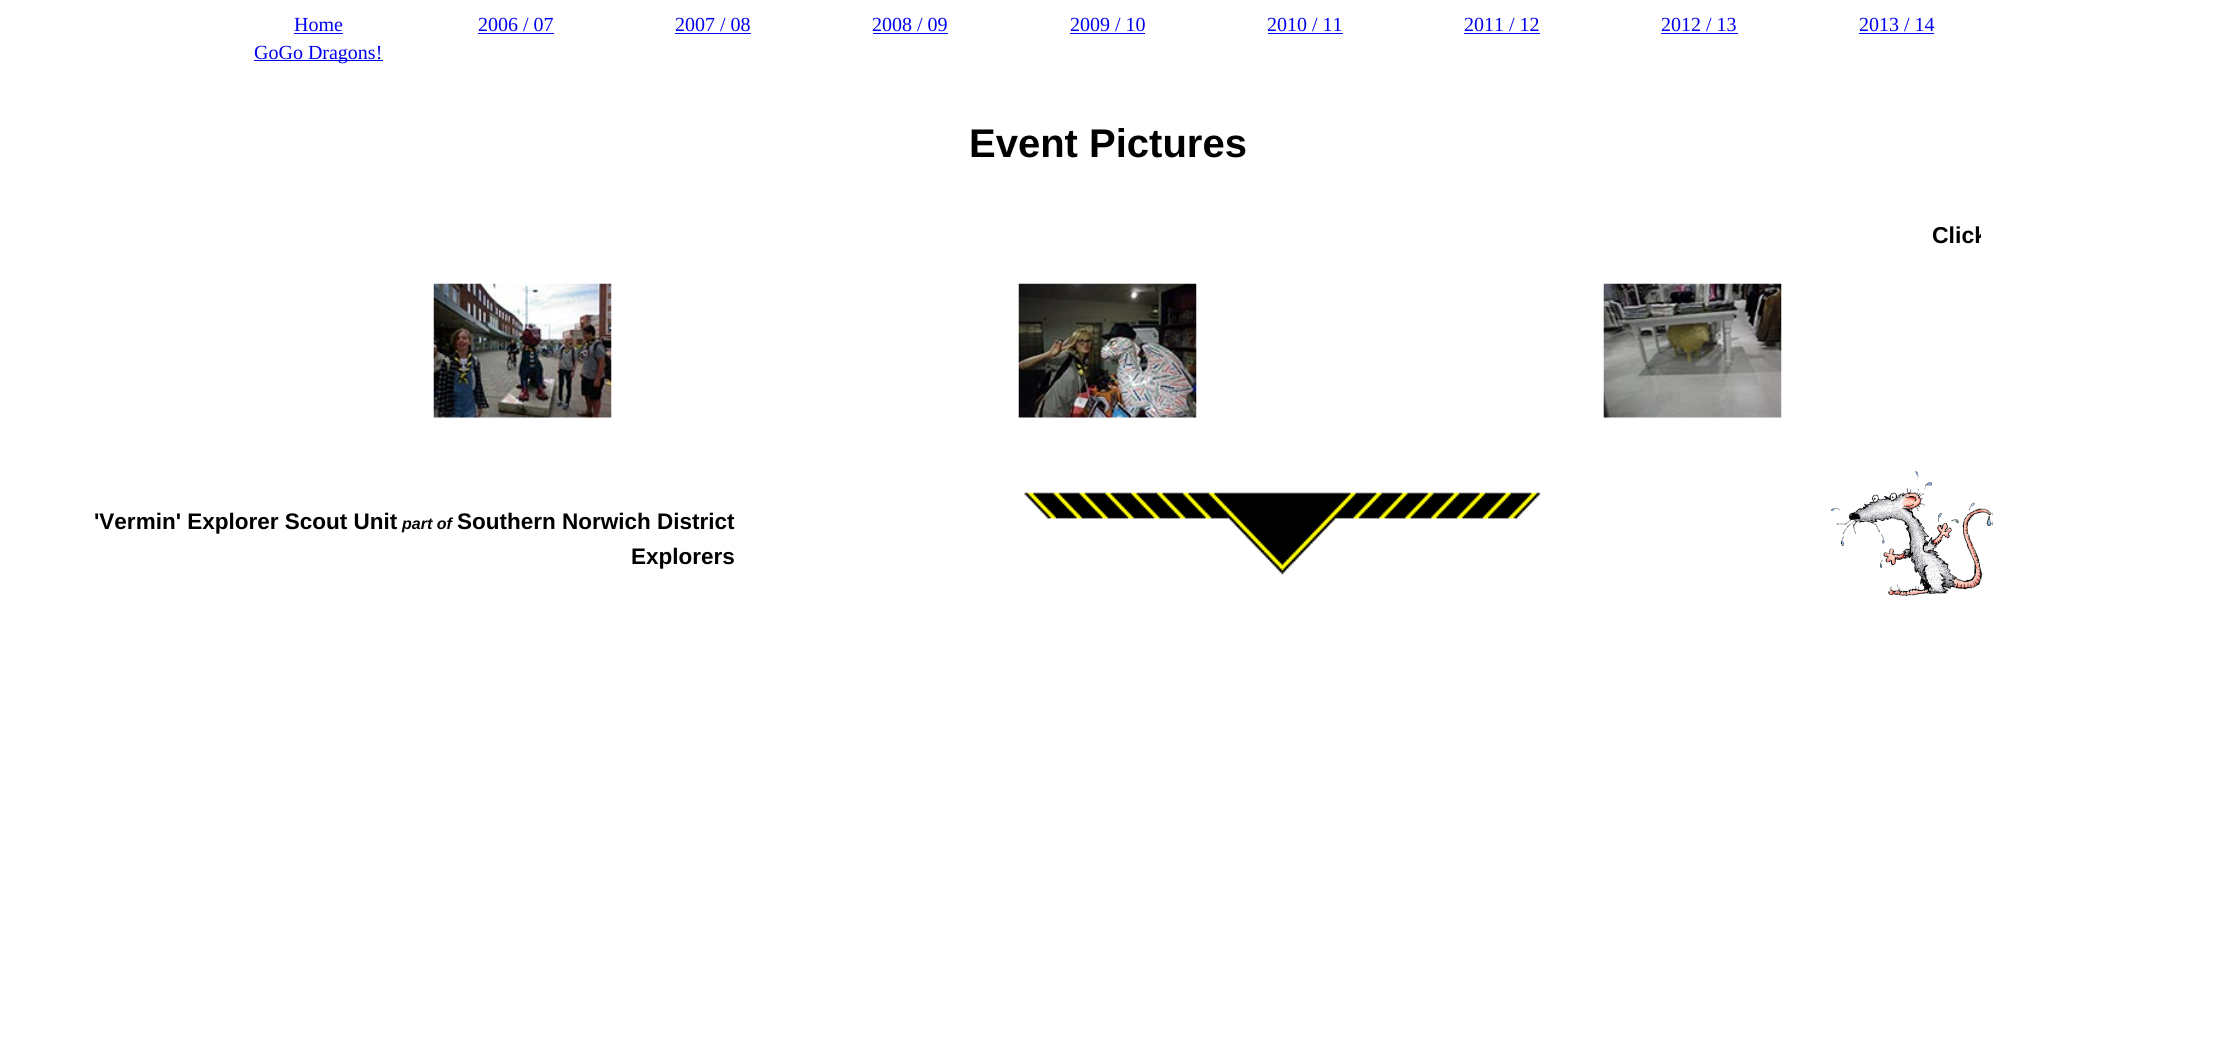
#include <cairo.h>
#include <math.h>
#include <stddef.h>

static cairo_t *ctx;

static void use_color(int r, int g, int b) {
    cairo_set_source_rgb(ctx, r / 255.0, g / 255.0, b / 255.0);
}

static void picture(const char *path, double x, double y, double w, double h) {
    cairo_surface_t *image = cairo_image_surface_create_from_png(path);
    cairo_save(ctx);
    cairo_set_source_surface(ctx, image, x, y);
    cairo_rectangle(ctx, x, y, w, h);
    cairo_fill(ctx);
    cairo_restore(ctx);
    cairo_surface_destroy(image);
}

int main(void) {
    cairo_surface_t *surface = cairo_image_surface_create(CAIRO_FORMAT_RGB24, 2215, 1058);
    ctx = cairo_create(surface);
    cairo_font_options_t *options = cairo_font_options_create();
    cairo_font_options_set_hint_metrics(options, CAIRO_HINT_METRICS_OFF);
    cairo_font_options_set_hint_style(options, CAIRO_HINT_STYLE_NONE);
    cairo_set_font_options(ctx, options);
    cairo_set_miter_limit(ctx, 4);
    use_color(255, 255, 255);
    cairo_paint(ctx);
    cairo_select_font_face(ctx, "Liberation Serif", CAIRO_FONT_SLANT_NORMAL, CAIRO_FONT_WEIGHT_NORMAL);
    cairo_set_font_size(ctx, 20);
    use_color(0, 0, 238);
    cairo_move_to(ctx, 294, 31);
    cairo_show_text(ctx, "Home");
    cairo_rectangle(ctx, 294, 33, 49, 1);
    cairo_fill(ctx);
    cairo_move_to(ctx, 478, 31);
    cairo_show_text(ctx, "2006 / 07");
    cairo_rectangle(ctx, 478, 33, 76, 1);
    cairo_fill(ctx);
    cairo_move_to(ctx, 675, 31);
    cairo_show_text(ctx, "2007 / 08");
    cairo_rectangle(ctx, 675, 33, 76, 1);
    cairo_fill(ctx);
    cairo_move_to(ctx, 872, 31);
    cairo_show_text(ctx, "2008 / 09");
    cairo_rectangle(ctx, 873, 33, 75, 1);
    cairo_fill(ctx);
    cairo_move_to(ctx, 1070, 31);
    cairo_show_text(ctx, "2009 / 10");
    cairo_rectangle(ctx, 1070, 33, 75, 1);
    cairo_fill(ctx);
    cairo_move_to(ctx, 1267, 31);
    cairo_show_text(ctx, "2010 / 11");
    cairo_rectangle(ctx, 1268, 33, 75, 1);
    cairo_fill(ctx);
    cairo_move_to(ctx, 1464, 31);
    cairo_show_text(ctx, "2011 / 12");
    cairo_rectangle(ctx, 1464, 33, 76, 1);
    cairo_fill(ctx);
    cairo_move_to(ctx, 1661, 31);
    cairo_show_text(ctx, "2012 / 13");
    cairo_rectangle(ctx, 1661, 33, 77, 1);
    cairo_fill(ctx);
    cairo_move_to(ctx, 1859, 31);
    cairo_show_text(ctx, "2013 / 14");
    cairo_rectangle(ctx, 1859, 33, 75, 1);
    cairo_fill(ctx);
    cairo_rectangle(ctx, 254, 60, 129, 1);
    cairo_fill(ctx);
    cairo_move_to(ctx, 254, 59);
    cairo_show_text(ctx, "GoGo Dragons!");
    cairo_select_font_face(ctx, "Liberation Sans", CAIRO_FONT_SLANT_NORMAL, CAIRO_FONT_WEIGHT_BOLD);
    cairo_set_font_size(ctx, 40);
    use_color(0, 0, 0);
    cairo_move_to(ctx, 969, 157);
    cairo_show_text(ctx, "Event Pictures");
    cairo_save(ctx);
    cairo_rectangle(ctx, 234, 223, 1747, 27);
    cairo_clip(ctx);
    cairo_set_font_size(ctx, 23);
    cairo_move_to(ctx, 1932, 243);
    cairo_show_text(ctx, "Click");
    cairo_restore(ctx);
    picture("img1.png", 433, 283, 179, 135);
    picture("img2.png", 1018, 283, 179, 135);
    picture("img3.png", 1603, 283, 179, 135);
    cairo_set_font_size(ctx, 22.5);
    cairo_move_to(ctx, 94, 529);
    cairo_show_text(ctx, "'Vermin' Explorer Scout Unit");
    cairo_select_font_face(ctx, "Liberation Sans", CAIRO_FONT_SLANT_ITALIC, CAIRO_FONT_WEIGHT_BOLD);
    cairo_set_font_size(ctx, 16);
    cairo_move_to(ctx, 402, 529);
    cairo_show_text(ctx, "part of");
    cairo_select_font_face(ctx, "Liberation Sans", CAIRO_FONT_SLANT_NORMAL, CAIRO_FONT_WEIGHT_BOLD);
    cairo_set_font_size(ctx, 22.5);
    cairo_move_to(ctx, 457, 529);
    cairo_show_text(ctx, "Southern Norwich District");
    cairo_move_to(ctx, 631, 564);
    cairo_show_text(ctx, "Explorers");
    picture("img4.png", 1024, 492, 517, 83);
    picture("img5.png", 1831, 471, 162, 126);
    cairo_surface_write_to_png(surface, "result.png");
    cairo_font_options_destroy(options);
    cairo_destroy(ctx);
    cairo_surface_destroy(surface);
    return 0;
}
